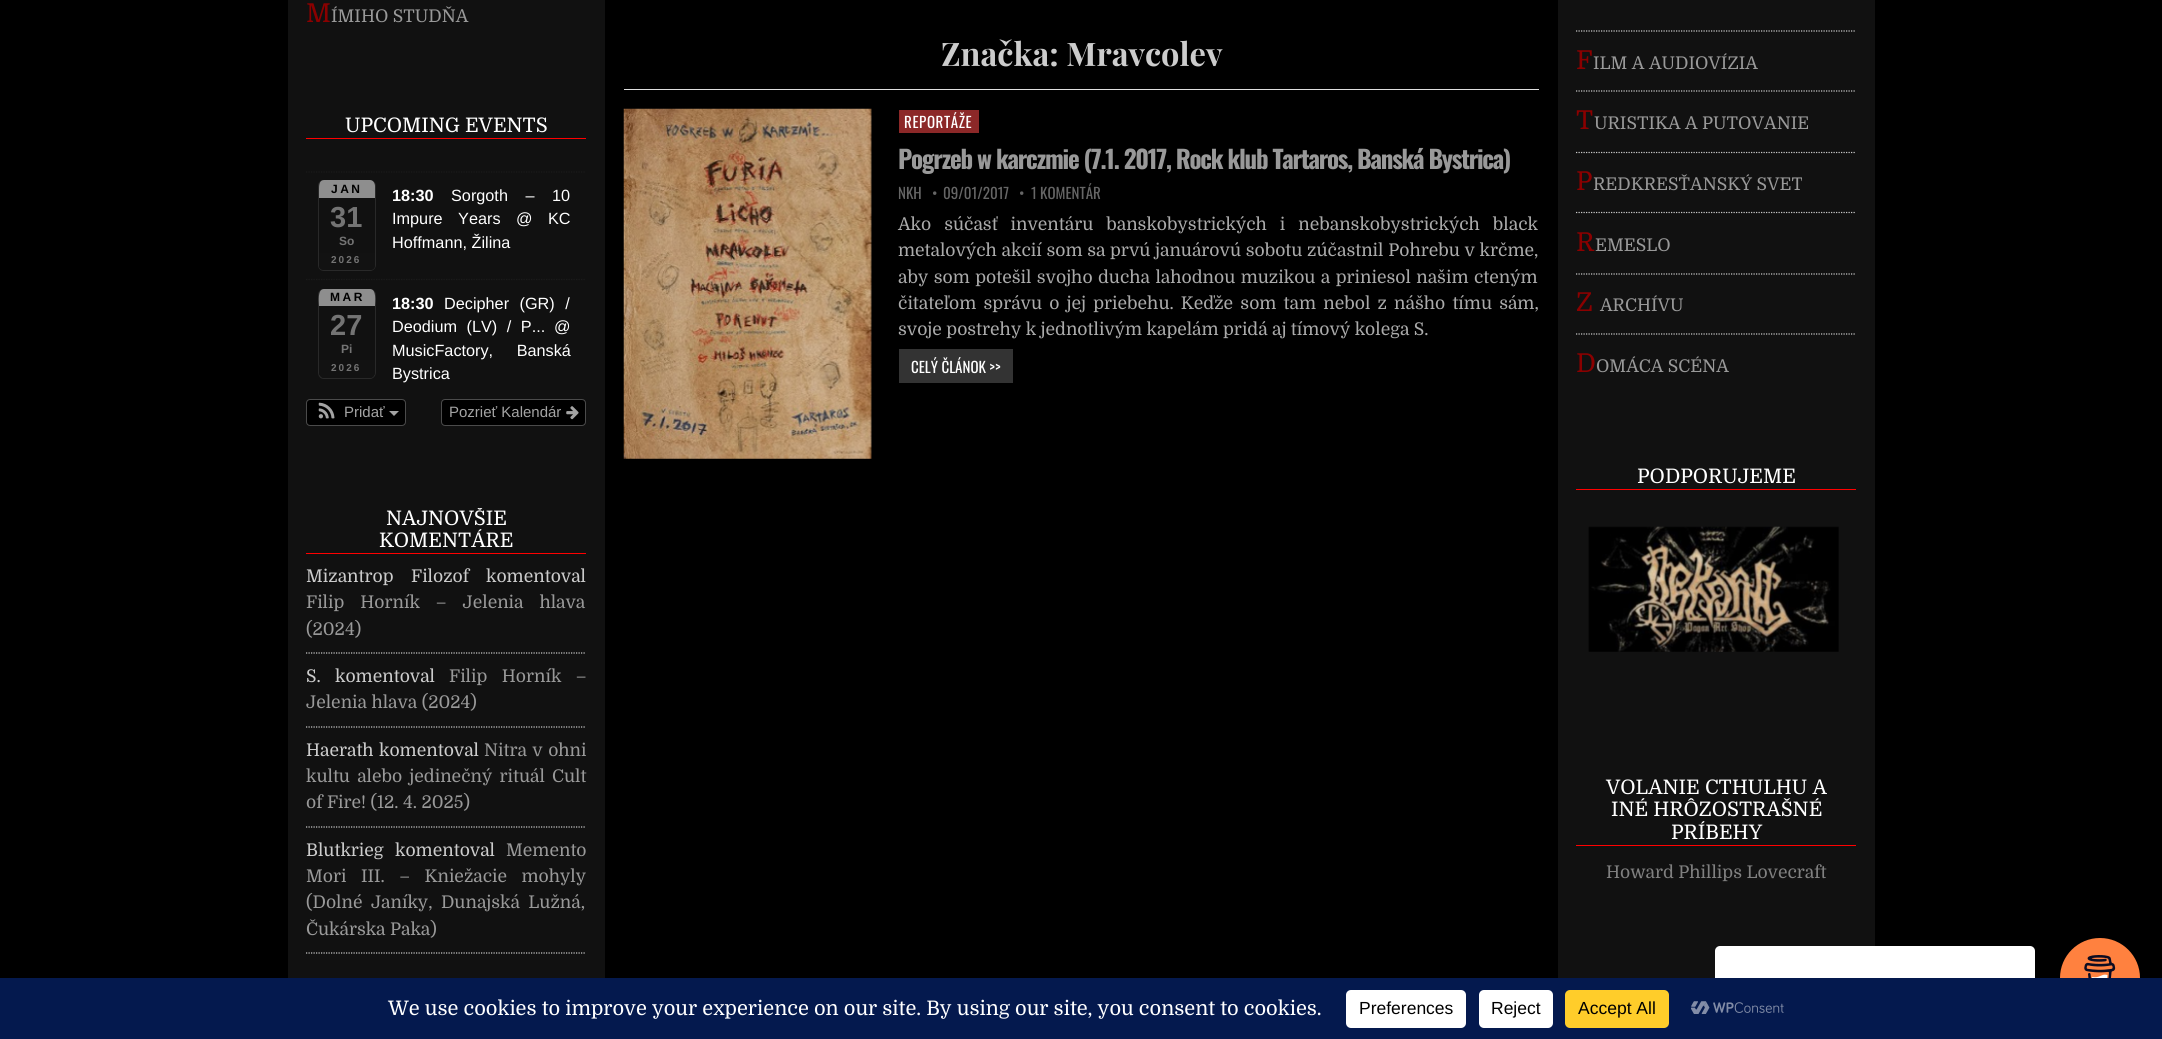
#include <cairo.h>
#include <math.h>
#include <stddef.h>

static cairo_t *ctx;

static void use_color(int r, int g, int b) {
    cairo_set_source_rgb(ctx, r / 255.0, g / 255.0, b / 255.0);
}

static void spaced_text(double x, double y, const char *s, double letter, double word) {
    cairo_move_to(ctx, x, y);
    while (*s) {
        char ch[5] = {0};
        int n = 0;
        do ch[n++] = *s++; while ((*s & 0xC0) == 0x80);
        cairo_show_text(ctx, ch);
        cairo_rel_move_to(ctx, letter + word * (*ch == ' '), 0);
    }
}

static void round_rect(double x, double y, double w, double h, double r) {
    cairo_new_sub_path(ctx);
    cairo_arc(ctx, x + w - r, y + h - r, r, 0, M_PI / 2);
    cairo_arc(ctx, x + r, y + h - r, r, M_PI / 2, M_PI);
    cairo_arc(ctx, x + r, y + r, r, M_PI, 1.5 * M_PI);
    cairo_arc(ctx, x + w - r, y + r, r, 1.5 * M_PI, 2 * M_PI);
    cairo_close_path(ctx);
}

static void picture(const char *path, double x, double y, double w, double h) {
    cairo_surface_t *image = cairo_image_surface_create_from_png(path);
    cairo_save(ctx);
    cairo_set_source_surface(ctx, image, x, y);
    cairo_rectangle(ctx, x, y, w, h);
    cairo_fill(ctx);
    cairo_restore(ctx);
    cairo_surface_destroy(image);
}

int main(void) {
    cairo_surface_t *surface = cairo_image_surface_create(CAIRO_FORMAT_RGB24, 2162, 1039);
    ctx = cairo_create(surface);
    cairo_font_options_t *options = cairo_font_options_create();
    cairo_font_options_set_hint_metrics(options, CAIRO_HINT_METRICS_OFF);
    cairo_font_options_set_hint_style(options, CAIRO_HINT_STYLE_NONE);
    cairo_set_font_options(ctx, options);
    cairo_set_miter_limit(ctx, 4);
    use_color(0, 0, 0);
    cairo_paint(ctx);
    use_color(17, 17, 17);
    cairo_rectangle(ctx, 288, 0, 317, 978);
    cairo_fill(ctx);
    cairo_select_font_face(ctx, "Domine", CAIRO_FONT_SLANT_NORMAL, CAIRO_FONT_WEIGHT_NORMAL);
    cairo_set_font_size(ctx, 26);
    use_color(139, 0, 0);
    cairo_move_to(ctx, 306, 22);
    cairo_show_text(ctx, "M");
    cairo_set_font_size(ctx, 17.5);
    use_color(153, 153, 153);
    cairo_move_to(ctx, 331, 22);
    cairo_show_text(ctx, "ÍMIHO STUDŇA");
    use_color(255, 0, 0);
    cairo_rectangle(ctx, 306, 138, 280, 1);
    cairo_fill(ctx);
    cairo_set_font_size(ctx, 20);
    use_color(255, 255, 255);
    cairo_move_to(ctx, 345, 132);
    cairo_show_text(ctx, "UPCOMING EVENTS");
    cairo_new_path(ctx);
    cairo_move_to(ctx, 306, 172);
    cairo_line_to(ctx, 586, 172);
    use_color(27, 27, 27);
    cairo_set_line_width(ctx, 1.2);
    cairo_set_dash(ctx, (double[]){1.25, 1.25}, 2, 0);
    cairo_stroke(ctx);
    use_color(41, 41, 41);
    cairo_set_fill_rule(ctx, CAIRO_FILL_RULE_EVEN_ODD);
    cairo_new_path(ctx);
    cairo_move_to(ctx, 324, 180);
    cairo_line_to(ctx, 370, 180);
    cairo_curve_to(ctx, 373, 180, 376, 183, 376, 186);
    cairo_line_to(ctx, 376, 265);
    cairo_curve_to(ctx, 376, 268, 373, 271, 370, 271);
    cairo_line_to(ctx, 324, 271);
    cairo_curve_to(ctx, 320, 271, 318, 268, 318, 265);
    cairo_line_to(ctx, 318, 186);
    cairo_curve_to(ctx, 318, 183, 320, 180, 324, 180);
    cairo_close_path(ctx);
    cairo_move_to(ctx, 324, 180);
    cairo_line_to(ctx, 370, 180);
    cairo_curve_to(ctx, 373, 180, 375, 183, 375, 186);
    cairo_line_to(ctx, 375, 265);
    cairo_curve_to(ctx, 375, 268, 373, 270, 370, 270);
    cairo_line_to(ctx, 324, 270);
    cairo_curve_to(ctx, 321, 270, 319, 268, 319, 265);
    cairo_line_to(ctx, 319, 186);
    cairo_curve_to(ctx, 319, 183, 321, 180, 324, 180);
    cairo_close_path(ctx);
    cairo_fill(ctx);
    use_color(142, 142, 142);
    cairo_set_fill_rule(ctx, CAIRO_FILL_RULE_WINDING);
    cairo_new_path(ctx);
    cairo_move_to(ctx, 324, 180);
    cairo_line_to(ctx, 370, 180);
    cairo_curve_to(ctx, 373, 180, 375, 183, 375, 186);
    cairo_line_to(ctx, 375, 198);
    cairo_line_to(ctx, 319, 198);
    cairo_line_to(ctx, 319, 189);
    cairo_curve_to(ctx, 319, 186, 319, 180, 324, 180);
    cairo_close_path(ctx);
    cairo_fill(ctx);
    cairo_select_font_face(ctx, "Liberation Sans", CAIRO_FONT_SLANT_NORMAL, CAIRO_FONT_WEIGHT_BOLD);
    cairo_set_font_size(ctx, 12);
    use_color(0, 0, 0);
    spaced_text(331, 193, "JAN", 2.5, 0);
    cairo_set_font_size(ctx, 29);
    use_color(116, 116, 116);
    cairo_move_to(ctx, 330, 227);
    cairo_show_text(ctx, "31");
    cairo_set_font_size(ctx, 12);
    cairo_move_to(ctx, 339, 245);
    cairo_show_text(ctx, "So");
    use_color(18, 18, 18);
    cairo_new_path(ctx);
    cairo_move_to(ctx, 319, 253);
    cairo_line_to(ctx, 319, 267);
    cairo_curve_to(ctx, 320, 269, 322, 270, 324, 270);
    cairo_line_to(ctx, 370, 270);
    cairo_curve_to(ctx, 373, 270, 375, 268, 375, 265);
    cairo_line_to(ctx, 375, 253);
    cairo_close_path(ctx);
    cairo_fill(ctx);
    cairo_set_font_size(ctx, 10);
    use_color(116, 116, 116);
    spaced_text(331, 263, "2026", 2, 0);
    cairo_set_font_size(ctx, 16.25);
    use_color(255, 255, 255);
    cairo_move_to(ctx, 392, 201);
    cairo_show_text(ctx, "18:30");
    cairo_select_font_face(ctx, "Liberation Sans", CAIRO_FONT_SLANT_NORMAL, CAIRO_FONT_WEIGHT_NORMAL);
    spaced_text(451, 201, "Sorgoth – 10", 0, 13);
    spaced_text(392, 224, "Impure Years", 0, 11);
    spaced_text(516, 224, "@ KC", 0, 11);
    cairo_move_to(ctx, 392, 248);
    cairo_show_text(ctx, "Hoffmann, Žilina");
    cairo_new_path(ctx);
    cairo_move_to(ctx, 306, 279.5);
    cairo_line_to(ctx, 586, 279.5);
    use_color(27, 27, 27);
    cairo_stroke(ctx);
    use_color(41, 41, 41);
    cairo_set_fill_rule(ctx, CAIRO_FILL_RULE_EVEN_ODD);
    cairo_new_path(ctx);
    cairo_move_to(ctx, 324, 289);
    cairo_line_to(ctx, 370, 289);
    cairo_curve_to(ctx, 373, 289, 376, 292, 376, 295);
    cairo_line_to(ctx, 376, 372);
    cairo_curve_to(ctx, 376, 376, 373, 379, 370, 379);
    cairo_line_to(ctx, 324, 379);
    cairo_curve_to(ctx, 320, 379, 318, 376, 318, 372);
    cairo_line_to(ctx, 318, 295);
    cairo_curve_to(ctx, 318, 292, 320, 289, 324, 289);
    cairo_close_path(ctx);
    cairo_move_to(ctx, 324, 289);
    cairo_line_to(ctx, 370, 289);
    cairo_curve_to(ctx, 373, 289, 375, 292, 375, 295);
    cairo_line_to(ctx, 375, 372);
    cairo_curve_to(ctx, 375, 375, 373, 378, 370, 378);
    cairo_line_to(ctx, 324, 378);
    cairo_curve_to(ctx, 321, 378, 319, 375, 319, 372);
    cairo_line_to(ctx, 319, 295);
    cairo_curve_to(ctx, 319, 292, 321, 289, 324, 289);
    cairo_close_path(ctx);
    cairo_fill(ctx);
    use_color(142, 142, 142);
    cairo_set_fill_rule(ctx, CAIRO_FILL_RULE_WINDING);
    cairo_new_path(ctx);
    cairo_move_to(ctx, 324, 289);
    cairo_curve_to(ctx, 317, 289, 319, 302, 319, 306);
    cairo_line_to(ctx, 375, 306);
    cairo_curve_to(ctx, 375, 302, 377, 289, 370, 289);
    cairo_close_path(ctx);
    cairo_fill(ctx);
    cairo_select_font_face(ctx, "Liberation Sans", CAIRO_FONT_SLANT_NORMAL, CAIRO_FONT_WEIGHT_BOLD);
    cairo_set_font_size(ctx, 12);
    use_color(0, 0, 0);
    spaced_text(330, 301, "MAR", 2.5, 0);
    cairo_set_font_size(ctx, 29);
    use_color(116, 116, 116);
    cairo_move_to(ctx, 330, 335);
    cairo_show_text(ctx, "27");
    cairo_set_font_size(ctx, 12);
    cairo_move_to(ctx, 341, 353);
    cairo_show_text(ctx, "Pi");
    use_color(18, 18, 18);
    cairo_new_path(ctx);
    cairo_move_to(ctx, 319, 360);
    cairo_line_to(ctx, 319, 374);
    cairo_curve_to(ctx, 320, 376, 322, 378, 324, 378);
    cairo_line_to(ctx, 370, 378);
    cairo_curve_to(ctx, 373, 378, 375, 375, 375, 372);
    cairo_line_to(ctx, 375, 360);
    cairo_close_path(ctx);
    cairo_fill(ctx);
    cairo_set_font_size(ctx, 10);
    use_color(116, 116, 116);
    spaced_text(331, 371, "2026", 2, 0);
    cairo_set_font_size(ctx, 16.25);
    use_color(255, 255, 255);
    cairo_move_to(ctx, 392, 309);
    cairo_show_text(ctx, "18:30");
    cairo_select_font_face(ctx, "Liberation Sans", CAIRO_FONT_SLANT_NORMAL, CAIRO_FONT_WEIGHT_NORMAL);
    spaced_text(444, 309, "Decipher (GR) /", 0, 6);
    spaced_text(392, 332, "Deodium (LV) / P...", 0, 5);
    cairo_move_to(ctx, 554, 332);
    cairo_show_text(ctx, "@");
    spaced_text(392, 356, "MusicFactory, Banská", 0, 19);
    cairo_move_to(ctx, 392, 379);
    cairo_show_text(ctx, "Bystrica");
    use_color(0, 0, 0);
    round_rect(306.5, 399.5, 99, 26, 3.5);
    cairo_fill_preserve(ctx);
    use_color(75, 75, 75);
    cairo_set_line_width(ctx, 1);
    cairo_set_dash(ctx, NULL, 0, 0);
    cairo_stroke(ctx);
    picture("img1.png", 318, 402, 17, 17);
    cairo_set_font_size(ctx, 15);
    use_color(164, 164, 164);
    cairo_move_to(ctx, 344, 417);
    cairo_show_text(ctx, "Pridať");
    cairo_new_path(ctx);
    cairo_move_to(ctx, 389, 411);
    cairo_line_to(ctx, 399, 411);
    cairo_line_to(ctx, 394, 416);
    cairo_close_path(ctx);
    cairo_fill(ctx);
    use_color(0, 0, 0);
    round_rect(441.5, 399.5, 144, 26, 3.5);
    cairo_fill_preserve(ctx);
    use_color(75, 75, 75);
    cairo_stroke(ctx);
    use_color(164, 164, 164);
    cairo_move_to(ctx, 449, 417);
    cairo_show_text(ctx, "Pozrieť Kalendár");
    picture("img2.png", 566, 406, 13, 14);
    use_color(255, 0, 0);
    cairo_rectangle(ctx, 306, 553, 280, 1);
    cairo_fill(ctx);
    cairo_save(ctx);
    cairo_rectangle(ctx, 306, 508, 280, 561);
    cairo_clip(ctx);
    cairo_select_font_face(ctx, "Domine", CAIRO_FONT_SLANT_NORMAL, CAIRO_FONT_WEIGHT_NORMAL);
    cairo_set_font_size(ctx, 20);
    use_color(255, 255, 255);
    cairo_move_to(ctx, 386, 525);
    cairo_show_text(ctx, "NAJNOVŠIE");
    cairo_restore(ctx);
    cairo_select_font_face(ctx, "Domine", CAIRO_FONT_SLANT_NORMAL, CAIRO_FONT_WEIGHT_NORMAL);
    cairo_set_font_size(ctx, 20);
    use_color(255, 255, 255);
    cairo_move_to(ctx, 379, 547);
    cairo_show_text(ctx, "KOMENTÁRE");
    cairo_new_path(ctx);
    cairo_move_to(ctx, 306, 653);
    cairo_line_to(ctx, 586, 653);
    use_color(204, 204, 204);
    cairo_set_line_width(ctx, 1.2);
    cairo_set_dash(ctx, (double[]){1.25, 1.25}, 2, 0);
    cairo_stroke(ctx);
    cairo_set_font_size(ctx, 17.5);
    spaced_text(306, 582, "Mizantrop Filozof", 0, 13);
    cairo_move_to(ctx, 486, 582);
    cairo_show_text(ctx, "komentoval");
    use_color(153, 153, 153);
    spaced_text(306, 608, "Filip Horník – Jelenia hlava", 0, 11.5);
    cairo_move_to(ctx, 306, 635);
    cairo_show_text(ctx, "(2024)");
    cairo_new_path(ctx);
    cairo_move_to(ctx, 306, 727);
    cairo_line_to(ctx, 586, 727);
    use_color(204, 204, 204);
    cairo_stroke(ctx);
    cairo_move_to(ctx, 306, 682);
    cairo_show_text(ctx, "S.");
    cairo_move_to(ctx, 335, 682);
    cairo_show_text(ctx, "komentoval");
    use_color(153, 153, 153);
    spaced_text(449, 682, "Filip Horník –", 0, 10);
    cairo_move_to(ctx, 306, 708);
    cairo_show_text(ctx, "Jelenia hlava (2024)");
    cairo_new_path(ctx);
    cairo_move_to(ctx, 306, 827);
    cairo_line_to(ctx, 586, 827);
    use_color(204, 204, 204);
    cairo_stroke(ctx);
    cairo_move_to(ctx, 306, 756);
    cairo_show_text(ctx, "Haerath");
    cairo_move_to(ctx, 379, 756);
    cairo_show_text(ctx, "komentoval");
    use_color(153, 153, 153);
    spaced_text(484, 756, "Nitra v ohni", 0, 1);
    spaced_text(306, 782, "kultu alebo jedinečný rituál Cult", 0, 2.75);
    cairo_move_to(ctx, 306, 808);
    cairo_show_text(ctx, "of Fire! (12. 4. 2025)");
    cairo_new_path(ctx);
    cairo_move_to(ctx, 306, 953);
    cairo_line_to(ctx, 586, 953);
    use_color(204, 204, 204);
    cairo_stroke(ctx);
    cairo_move_to(ctx, 306, 856);
    cairo_show_text(ctx, "Blutkrieg");
    cairo_move_to(ctx, 395, 856);
    cairo_show_text(ctx, "komentoval");
    use_color(153, 153, 153);
    cairo_move_to(ctx, 506, 856);
    cairo_show_text(ctx, "Memento");
    spaced_text(306, 882, "Mori III. – Kniežacie mohyly", 0, 10);
    spaced_text(306, 908, "(Dolné Janíky, Dunajská Lužná,", 0, 4);
    cairo_move_to(ctx, 306, 935);
    cairo_show_text(ctx, "Čukárska Paka)");
    use_color(223, 223, 223);
    cairo_rectangle(ctx, 624, 89, 915, 1);
    cairo_fill(ctx);
    cairo_select_font_face(ctx, "Playfair Display", CAIRO_FONT_SLANT_NORMAL, CAIRO_FONT_WEIGHT_BOLD);
    cairo_set_font_size(ctx, 32.5);
    use_color(204, 204, 204);
    cairo_move_to(ctx, 941, 66);
    cairo_show_text(ctx, "Značka: Mravcolev");
    picture("img3.png", 623, 108, 249, 351);
    use_color(140, 40, 40);
    cairo_rectangle(ctx, 899, 110, 80, 23);
    cairo_fill(ctx);
    cairo_select_font_face(ctx, "Oswald", CAIRO_FONT_SLANT_NORMAL, CAIRO_FONT_WEIGHT_NORMAL);
    cairo_set_font_size(ctx, 15);
    use_color(255, 255, 255);
    spaced_text(904, 128, "REPORTÁŽE", 0.6, 0);
    cairo_select_font_face(ctx, "Oswald", CAIRO_FONT_SLANT_NORMAL, CAIRO_FONT_WEIGHT_BOLD);
    cairo_set_font_size(ctx, 25);
    use_color(153, 153, 153);
    spaced_text(898, 169, "Pogrzeb w karczmie (7.1. 2017, Rock klub Tartaros, Banská Bystrica)", -1.25, 0);
    cairo_select_font_face(ctx, "Oswald", CAIRO_FONT_SLANT_NORMAL, CAIRO_FONT_WEIGHT_NORMAL);
    cairo_set_font_size(ctx, 15);
    use_color(102, 102, 102);
    cairo_move_to(ctx, 898, 199);
    cairo_show_text(ctx, "NKH");
    cairo_move_to(ctx, 932, 199);
    cairo_show_text(ctx, "•");
    cairo_move_to(ctx, 943, 199);
    cairo_show_text(ctx, "09/01/2017");
    cairo_move_to(ctx, 1019, 199);
    cairo_show_text(ctx, "•");
    cairo_move_to(ctx, 1031, 199);
    cairo_show_text(ctx, "1 KOMENTÁR");
    cairo_select_font_face(ctx, "Domine", CAIRO_FONT_SLANT_NORMAL, CAIRO_FONT_WEIGHT_NORMAL);
    cairo_set_font_size(ctx, 17.5);
    use_color(170, 170, 170);
    spaced_text(898, 230, "Ako súčasť inventáru banskobystrických i nebanskobystrických black", 0, 8.5);
    spaced_text(898, 256, "metalových akcií som sa prvú januárovú sobotu zúčastnil Pohrebu v krčme,", 0, 0.25);
    spaced_text(898, 283, "aby som potešil svojho ducha lahodnou muzikou a priniesol našim cteným", 0, 1);
    spaced_text(898, 309, "čitateľom správu o jej priebehu. Keďže som tam nebol z nášho tímu sám,", 0, 2.75);
    cairo_move_to(ctx, 898, 335);
    cairo_show_text(ctx, "svoje postrehy k jednotlivým kapelám pridá aj tímový kolega S.");
    use_color(51, 51, 51);
    cairo_rectangle(ctx, 899, 349, 114, 34);
    cairo_fill(ctx);
    cairo_select_font_face(ctx, "Oswald", CAIRO_FONT_SLANT_NORMAL, CAIRO_FONT_WEIGHT_NORMAL);
    cairo_set_font_size(ctx, 15);
    use_color(255, 255, 255);
    cairo_move_to(ctx, 911, 373);
    cairo_show_text(ctx, "CELÝ ČLÁNOK >>");
    use_color(17, 17, 17);
    cairo_rectangle(ctx, 1558, 0, 317, 978);
    cairo_fill(ctx);
    cairo_new_path(ctx);
    cairo_move_to(ctx, 1576, 31);
    cairo_line_to(ctx, 1856, 31);
    use_color(204, 204, 204);
    cairo_stroke(ctx);
    cairo_new_path(ctx);
    cairo_move_to(ctx, 1576, 91);
    cairo_line_to(ctx, 1856, 91);
    cairo_stroke(ctx);
    cairo_select_font_face(ctx, "Domine", CAIRO_FONT_SLANT_NORMAL, CAIRO_FONT_WEIGHT_NORMAL);
    cairo_set_font_size(ctx, 26);
    use_color(139, 0, 0);
    cairo_move_to(ctx, 1576, 69);
    cairo_show_text(ctx, "F");
    cairo_set_font_size(ctx, 17.5);
    use_color(153, 153, 153);
    cairo_move_to(ctx, 1593, 69);
    cairo_show_text(ctx, "ILM A AUDIOVÍZIA");
    cairo_new_path(ctx);
    cairo_move_to(ctx, 1576, 152.5);
    cairo_line_to(ctx, 1856, 152.5);
    use_color(204, 204, 204);
    cairo_stroke(ctx);
    cairo_set_font_size(ctx, 26);
    use_color(139, 0, 0);
    cairo_move_to(ctx, 1576, 129);
    cairo_show_text(ctx, "T");
    cairo_set_font_size(ctx, 17.5);
    use_color(153, 153, 153);
    cairo_move_to(ctx, 1594, 129);
    cairo_show_text(ctx, "URISTIKA A PUTOVANIE");
    cairo_new_path(ctx);
    cairo_move_to(ctx, 1576, 212.5);
    cairo_line_to(ctx, 1856, 212.5);
    use_color(204, 204, 204);
    cairo_stroke(ctx);
    cairo_set_font_size(ctx, 26);
    use_color(139, 0, 0);
    cairo_move_to(ctx, 1576, 190);
    cairo_show_text(ctx, "P");
    cairo_set_font_size(ctx, 17.5);
    use_color(153, 153, 153);
    cairo_move_to(ctx, 1593, 190);
    cairo_show_text(ctx, "REDKRESŤANSKÝ SVET");
    cairo_new_path(ctx);
    cairo_move_to(ctx, 1576, 274);
    cairo_line_to(ctx, 1856, 274);
    use_color(204, 204, 204);
    cairo_stroke(ctx);
    cairo_set_font_size(ctx, 26);
    use_color(139, 0, 0);
    cairo_move_to(ctx, 1576, 251);
    cairo_show_text(ctx, "R");
    cairo_set_font_size(ctx, 17.5);
    use_color(153, 153, 153);
    cairo_move_to(ctx, 1595, 251);
    cairo_show_text(ctx, "EMESLO");
    cairo_new_path(ctx);
    cairo_move_to(ctx, 1576, 334);
    cairo_line_to(ctx, 1856, 334);
    use_color(204, 204, 204);
    cairo_stroke(ctx);
    cairo_set_font_size(ctx, 26);
    use_color(139, 0, 0);
    cairo_move_to(ctx, 1576, 311);
    cairo_show_text(ctx, "Z");
    cairo_set_font_size(ctx, 17.5);
    use_color(153, 153, 153);
    cairo_move_to(ctx, 1600, 311);
    cairo_show_text(ctx, "ARCHÍVU");
    cairo_set_font_size(ctx, 26);
    use_color(139, 0, 0);
    cairo_move_to(ctx, 1576, 372);
    cairo_show_text(ctx, "D");
    cairo_set_font_size(ctx, 17.5);
    use_color(153, 153, 153);
    cairo_move_to(ctx, 1596, 372);
    cairo_show_text(ctx, "OMÁCA SCÉNA");
    use_color(255, 0, 0);
    cairo_rectangle(ctx, 1576, 489, 280, 1);
    cairo_fill(ctx);
    cairo_set_font_size(ctx, 20);
    use_color(255, 255, 255);
    cairo_move_to(ctx, 1637, 483);
    cairo_show_text(ctx, "PODPORUJEME");
    picture("img4.png", 1588, 526, 251, 126);
    use_color(255, 0, 0);
    cairo_rectangle(ctx, 1576, 845, 280, 1);
    cairo_fill(ctx);
    use_color(255, 255, 255);
    cairo_move_to(ctx, 1606, 794);
    cairo_show_text(ctx, "VOLANIE CTHULHU A");
    cairo_move_to(ctx, 1611, 816);
    cairo_show_text(ctx, "INÉ HRÔZOSTRAŠNÉ");
    cairo_move_to(ctx, 1671, 839);
    cairo_show_text(ctx, "PRÍBEHY");
    cairo_set_font_size(ctx, 17.5);
    use_color(128, 128, 128);
    cairo_move_to(ctx, 1606, 878);
    cairo_show_text(ctx, "Howard Phillips Lovecraft");
    use_color(255, 255, 255);
    round_rect(1715, 946, 320, 74, 5);
    cairo_fill(ctx);
    use_color(255, 129, 63);
    cairo_arc(ctx, 2100, 978, 40, 0, 2 * M_PI);
    cairo_fill(ctx);
    use_color(4, 25, 78);
    cairo_rectangle(ctx, 0, 978, 2162, 61);
    cairo_fill(ctx);
    cairo_set_font_size(ctx, 20);
    use_color(255, 255, 255);
    cairo_move_to(ctx, 388, 1015);
    cairo_show_text(ctx, "We use cookies to improve your experience on our site. By using our site, you consent to cookies.");
    round_rect(1346, 990, 120, 38, 5);
    cairo_fill(ctx);
    cairo_select_font_face(ctx, "Liberation Sans", CAIRO_FONT_SLANT_NORMAL, CAIRO_FONT_WEIGHT_NORMAL);
    cairo_set_font_size(ctx, 17.5);
    use_color(0, 0, 0);
    cairo_move_to(ctx, 1359, 1014);
    cairo_show_text(ctx, "Preferences");
    use_color(255, 255, 255);
    round_rect(1479, 990, 74, 38, 5);
    cairo_fill(ctx);
    use_color(0, 0, 0);
    cairo_move_to(ctx, 1491, 1014);
    cairo_show_text(ctx, "Reject");
    use_color(255, 205, 42);
    round_rect(1565, 990, 104, 38, 5);
    cairo_fill(ctx);
    use_color(0, 0, 0);
    cairo_move_to(ctx, 1578, 1014);
    cairo_show_text(ctx, "Accept All");
    picture("img5.png", 1691, 1001, 93, 13);
    picture("img6.png", 2084, 955, 32, 23);
    cairo_surface_write_to_png(surface, "result.png");
    cairo_font_options_destroy(options);
    cairo_destroy(ctx);
    cairo_surface_destroy(surface);
    return 0;
}
